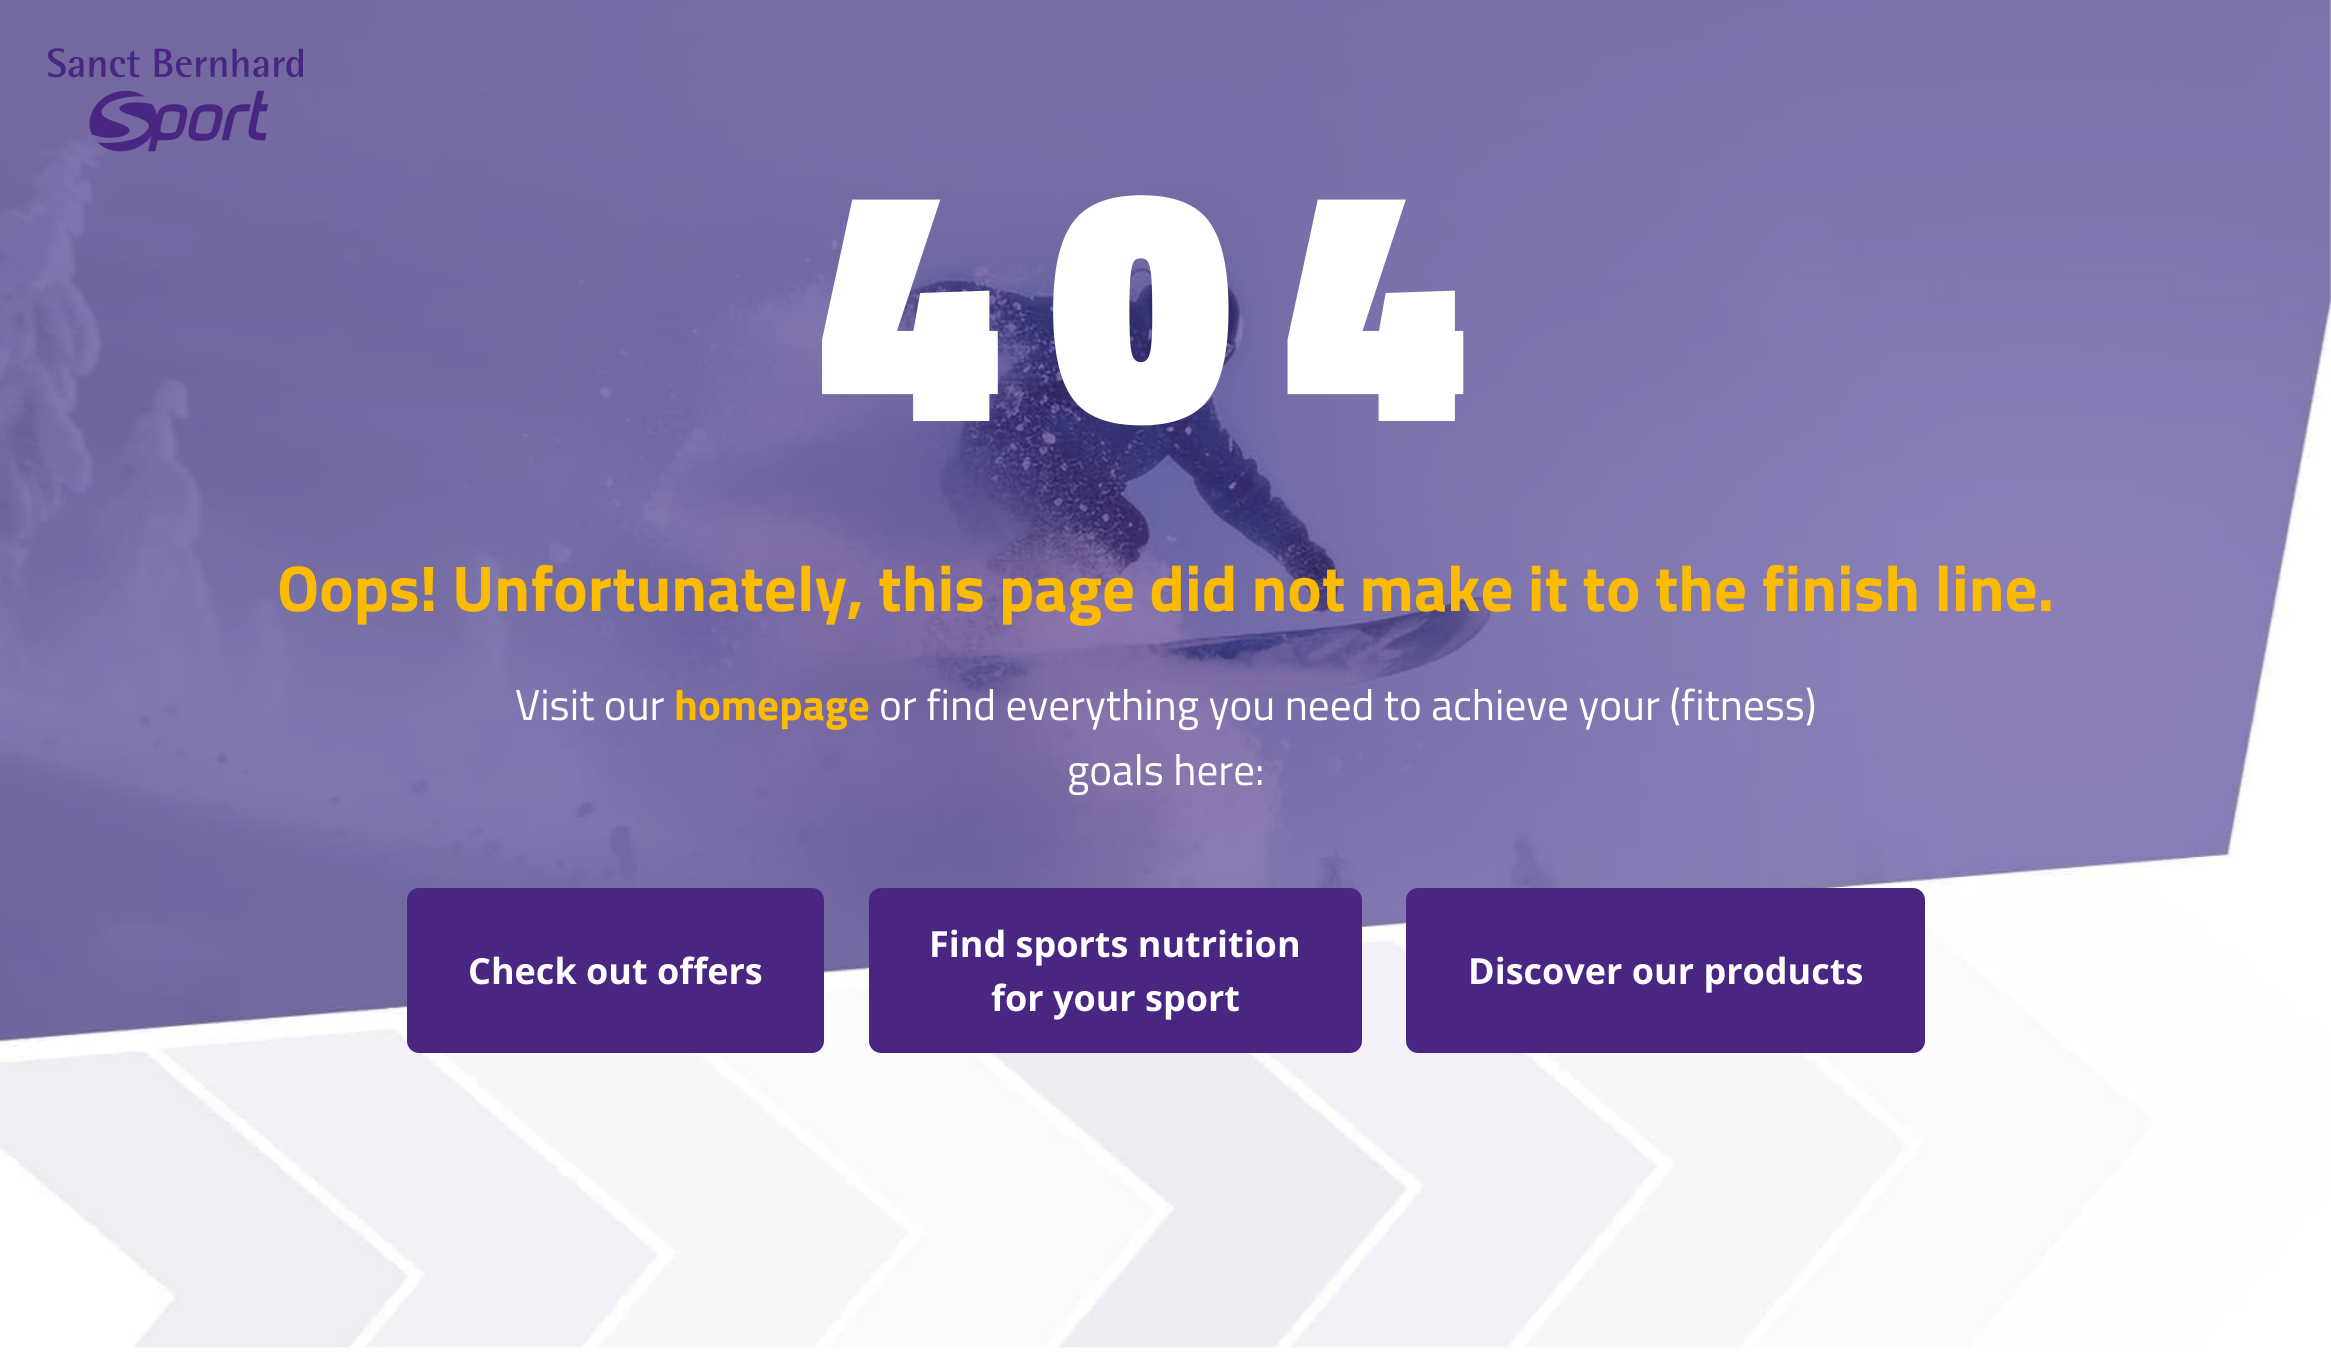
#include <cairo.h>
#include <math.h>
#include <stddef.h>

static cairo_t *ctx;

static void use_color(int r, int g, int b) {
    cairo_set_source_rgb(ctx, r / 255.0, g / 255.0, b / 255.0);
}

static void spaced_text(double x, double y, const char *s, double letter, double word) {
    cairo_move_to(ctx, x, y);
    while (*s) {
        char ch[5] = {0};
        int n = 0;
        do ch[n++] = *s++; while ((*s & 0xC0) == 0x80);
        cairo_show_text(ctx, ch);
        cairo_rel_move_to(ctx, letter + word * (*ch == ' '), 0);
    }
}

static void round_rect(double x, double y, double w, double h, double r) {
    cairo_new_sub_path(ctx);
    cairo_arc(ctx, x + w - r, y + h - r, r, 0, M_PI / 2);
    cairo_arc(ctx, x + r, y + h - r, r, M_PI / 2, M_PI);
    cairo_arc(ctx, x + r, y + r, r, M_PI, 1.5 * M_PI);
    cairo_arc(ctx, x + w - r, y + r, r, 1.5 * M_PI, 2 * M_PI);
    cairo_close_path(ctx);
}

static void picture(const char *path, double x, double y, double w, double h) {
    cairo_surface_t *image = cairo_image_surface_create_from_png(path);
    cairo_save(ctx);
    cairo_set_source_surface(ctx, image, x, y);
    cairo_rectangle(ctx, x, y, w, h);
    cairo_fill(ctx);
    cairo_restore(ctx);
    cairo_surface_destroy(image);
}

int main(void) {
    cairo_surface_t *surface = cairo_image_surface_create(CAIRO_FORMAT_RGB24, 2331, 1358);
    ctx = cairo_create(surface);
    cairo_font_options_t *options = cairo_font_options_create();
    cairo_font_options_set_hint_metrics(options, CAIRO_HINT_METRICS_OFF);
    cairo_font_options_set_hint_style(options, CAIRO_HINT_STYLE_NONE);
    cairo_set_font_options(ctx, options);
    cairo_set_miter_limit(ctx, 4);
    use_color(255, 255, 255);
    cairo_paint(ctx);
    picture("img1.png", 0, 0, 2331, 1349);
    picture("img2.png", 48, 48, 255, 104);
    cairo_select_font_face(ctx, "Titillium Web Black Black", CAIRO_FONT_SLANT_NORMAL, CAIRO_FONT_WEIGHT_NORMAL);
    cairo_set_font_size(ctx, 336);
    use_color(255, 255, 255);
    spaced_text(816, 421, "404", 48, 0);
    cairo_select_font_face(ctx, "Titillium Web", CAIRO_FONT_SLANT_NORMAL, CAIRO_FONT_WEIGHT_BOLD);
    cairo_set_font_size(ctx, 64.8);
    use_color(251, 187, 1);
    cairo_move_to(ctx, 277, 611);
    cairo_show_text(ctx, "Oops! Unfortunately, this page did not make it to the finish line.");
    cairo_select_font_face(ctx, "Titillium Web", CAIRO_FONT_SLANT_NORMAL, CAIRO_FONT_WEIGHT_NORMAL);
    cairo_set_font_size(ctx, 43.2);
    use_color(255, 255, 255);
    cairo_move_to(ctx, 515, 720);
    cairo_show_text(ctx, "Visit our");
    cairo_select_font_face(ctx, "Titillium Web", CAIRO_FONT_SLANT_NORMAL, CAIRO_FONT_WEIGHT_BOLD);
    use_color(251, 187, 1);
    cairo_move_to(ctx, 674, 720);
    cairo_show_text(ctx, "homepage");
    cairo_select_font_face(ctx, "Titillium Web", CAIRO_FONT_SLANT_NORMAL, CAIRO_FONT_WEIGHT_NORMAL);
    use_color(255, 255, 255);
    cairo_move_to(ctx, 879, 720);
    cairo_show_text(ctx, "or find everything you need to achieve your (fitness)");
    cairo_move_to(ctx, 1067, 785);
    cairo_show_text(ctx, "goals here:");
    use_color(74, 38, 131);
    round_rect(408, 889, 415, 163, 11);
    cairo_fill_preserve(ctx);
    cairo_stroke(ctx);
    cairo_select_font_face(ctx, "Open Sans", CAIRO_FONT_SLANT_NORMAL, CAIRO_FONT_WEIGHT_BOLD);
    cairo_set_font_size(ctx, 36);
    use_color(255, 255, 255);
    cairo_move_to(ctx, 468, 984);
    cairo_show_text(ctx, "Check out offers");
    use_color(74, 38, 131);
    round_rect(870, 889, 491, 163, 11);
    cairo_fill_preserve(ctx);
    cairo_stroke(ctx);
    use_color(255, 255, 255);
    cairo_move_to(ctx, 929, 957);
    cairo_show_text(ctx, "Find sports nutrition");
    cairo_move_to(ctx, 991, 1011);
    cairo_show_text(ctx, "for your sport");
    use_color(74, 38, 131);
    round_rect(1407, 889, 517, 163, 11);
    cairo_fill_preserve(ctx);
    cairo_stroke(ctx);
    use_color(255, 255, 255);
    cairo_move_to(ctx, 1468, 984);
    cairo_show_text(ctx, "Discover our products");
    cairo_surface_write_to_png(surface, "result.png");
    cairo_font_options_destroy(options);
    cairo_destroy(ctx);
    cairo_surface_destroy(surface);
    return 0;
}
